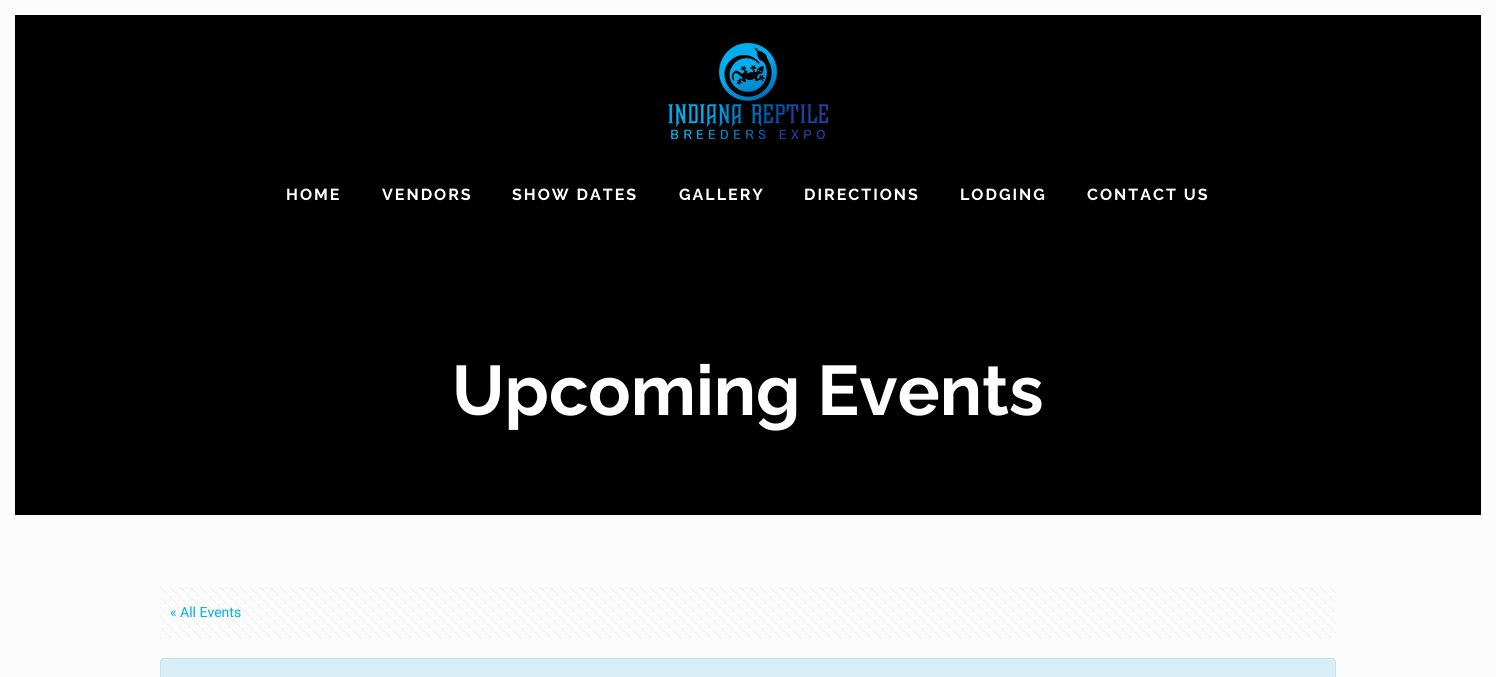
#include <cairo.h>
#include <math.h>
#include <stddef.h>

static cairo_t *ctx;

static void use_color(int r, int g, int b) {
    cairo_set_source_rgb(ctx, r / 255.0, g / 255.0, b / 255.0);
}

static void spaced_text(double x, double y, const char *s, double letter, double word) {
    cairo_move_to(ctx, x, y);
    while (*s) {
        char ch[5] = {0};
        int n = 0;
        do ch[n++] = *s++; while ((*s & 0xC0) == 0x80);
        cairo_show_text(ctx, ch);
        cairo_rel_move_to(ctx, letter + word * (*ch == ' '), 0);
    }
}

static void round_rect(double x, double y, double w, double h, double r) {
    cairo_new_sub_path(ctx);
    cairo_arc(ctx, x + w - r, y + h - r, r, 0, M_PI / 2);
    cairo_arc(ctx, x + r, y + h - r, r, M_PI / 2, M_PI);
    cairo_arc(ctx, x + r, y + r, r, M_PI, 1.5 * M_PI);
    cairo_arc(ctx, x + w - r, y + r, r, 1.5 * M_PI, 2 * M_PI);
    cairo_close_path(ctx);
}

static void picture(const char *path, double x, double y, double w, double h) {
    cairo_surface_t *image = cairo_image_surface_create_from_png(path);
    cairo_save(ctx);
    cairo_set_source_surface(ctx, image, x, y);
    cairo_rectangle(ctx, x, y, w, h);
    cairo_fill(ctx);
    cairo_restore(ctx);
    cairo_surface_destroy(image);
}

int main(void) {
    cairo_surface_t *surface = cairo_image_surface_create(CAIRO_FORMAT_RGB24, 1496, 677);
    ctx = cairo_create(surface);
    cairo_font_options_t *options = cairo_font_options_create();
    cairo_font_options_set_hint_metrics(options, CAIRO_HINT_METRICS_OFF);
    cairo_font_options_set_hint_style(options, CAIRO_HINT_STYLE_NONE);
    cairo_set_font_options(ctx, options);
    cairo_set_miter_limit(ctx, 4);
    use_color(252, 252, 252);
    cairo_paint(ctx);
    use_color(0, 0, 0);
    cairo_rectangle(ctx, 15, 15, 1466, 500);
    cairo_fill(ctx);
    picture("img1.png", 668, 43, 160, 96);
    cairo_select_font_face(ctx, "Raleway", CAIRO_FONT_SLANT_NORMAL, CAIRO_FONT_WEIGHT_BOLD);
    cairo_set_font_size(ctx, 16);
    use_color(255, 255, 255);
    spaced_text(286, 200, "HOME", 2, 0);
    spaced_text(382, 200, "VENDORS", 2, 0);
    spaced_text(512, 200, "SHOW DATES", 2, 0);
    spaced_text(679, 200, "GALLERY", 2, 0);
    spaced_text(804, 200, "DIRECTIONS", 2, 0);
    spaced_text(960, 200, "LODGING", 2, 0);
    spaced_text(1087, 200, "CONTACT US", 2, 0);
    cairo_set_font_size(ctx, 70);
    cairo_move_to(ctx, 452, 415);
    cairo_show_text(ctx, "Upcoming Events");
    picture("img2.png", 160, 587, 1176, 51);
    cairo_select_font_face(ctx, "Roboto", CAIRO_FONT_SLANT_NORMAL, CAIRO_FONT_WEIGHT_NORMAL);
    cairo_set_font_size(ctx, 14);
    use_color(0, 174, 239);
    cairo_move_to(ctx, 170, 617);
    cairo_show_text(ctx, "« All Events");
    use_color(217, 237, 247);
    round_rect(160.5, 658.5, 1175, 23, 3.5);
    cairo_fill_preserve(ctx);
    use_color(188, 232, 241);
    cairo_set_line_width(ctx, 1);
    cairo_stroke(ctx);
    cairo_surface_write_to_png(surface, "result.png");
    cairo_font_options_destroy(options);
    cairo_destroy(ctx);
    cairo_surface_destroy(surface);
    return 0;
}
